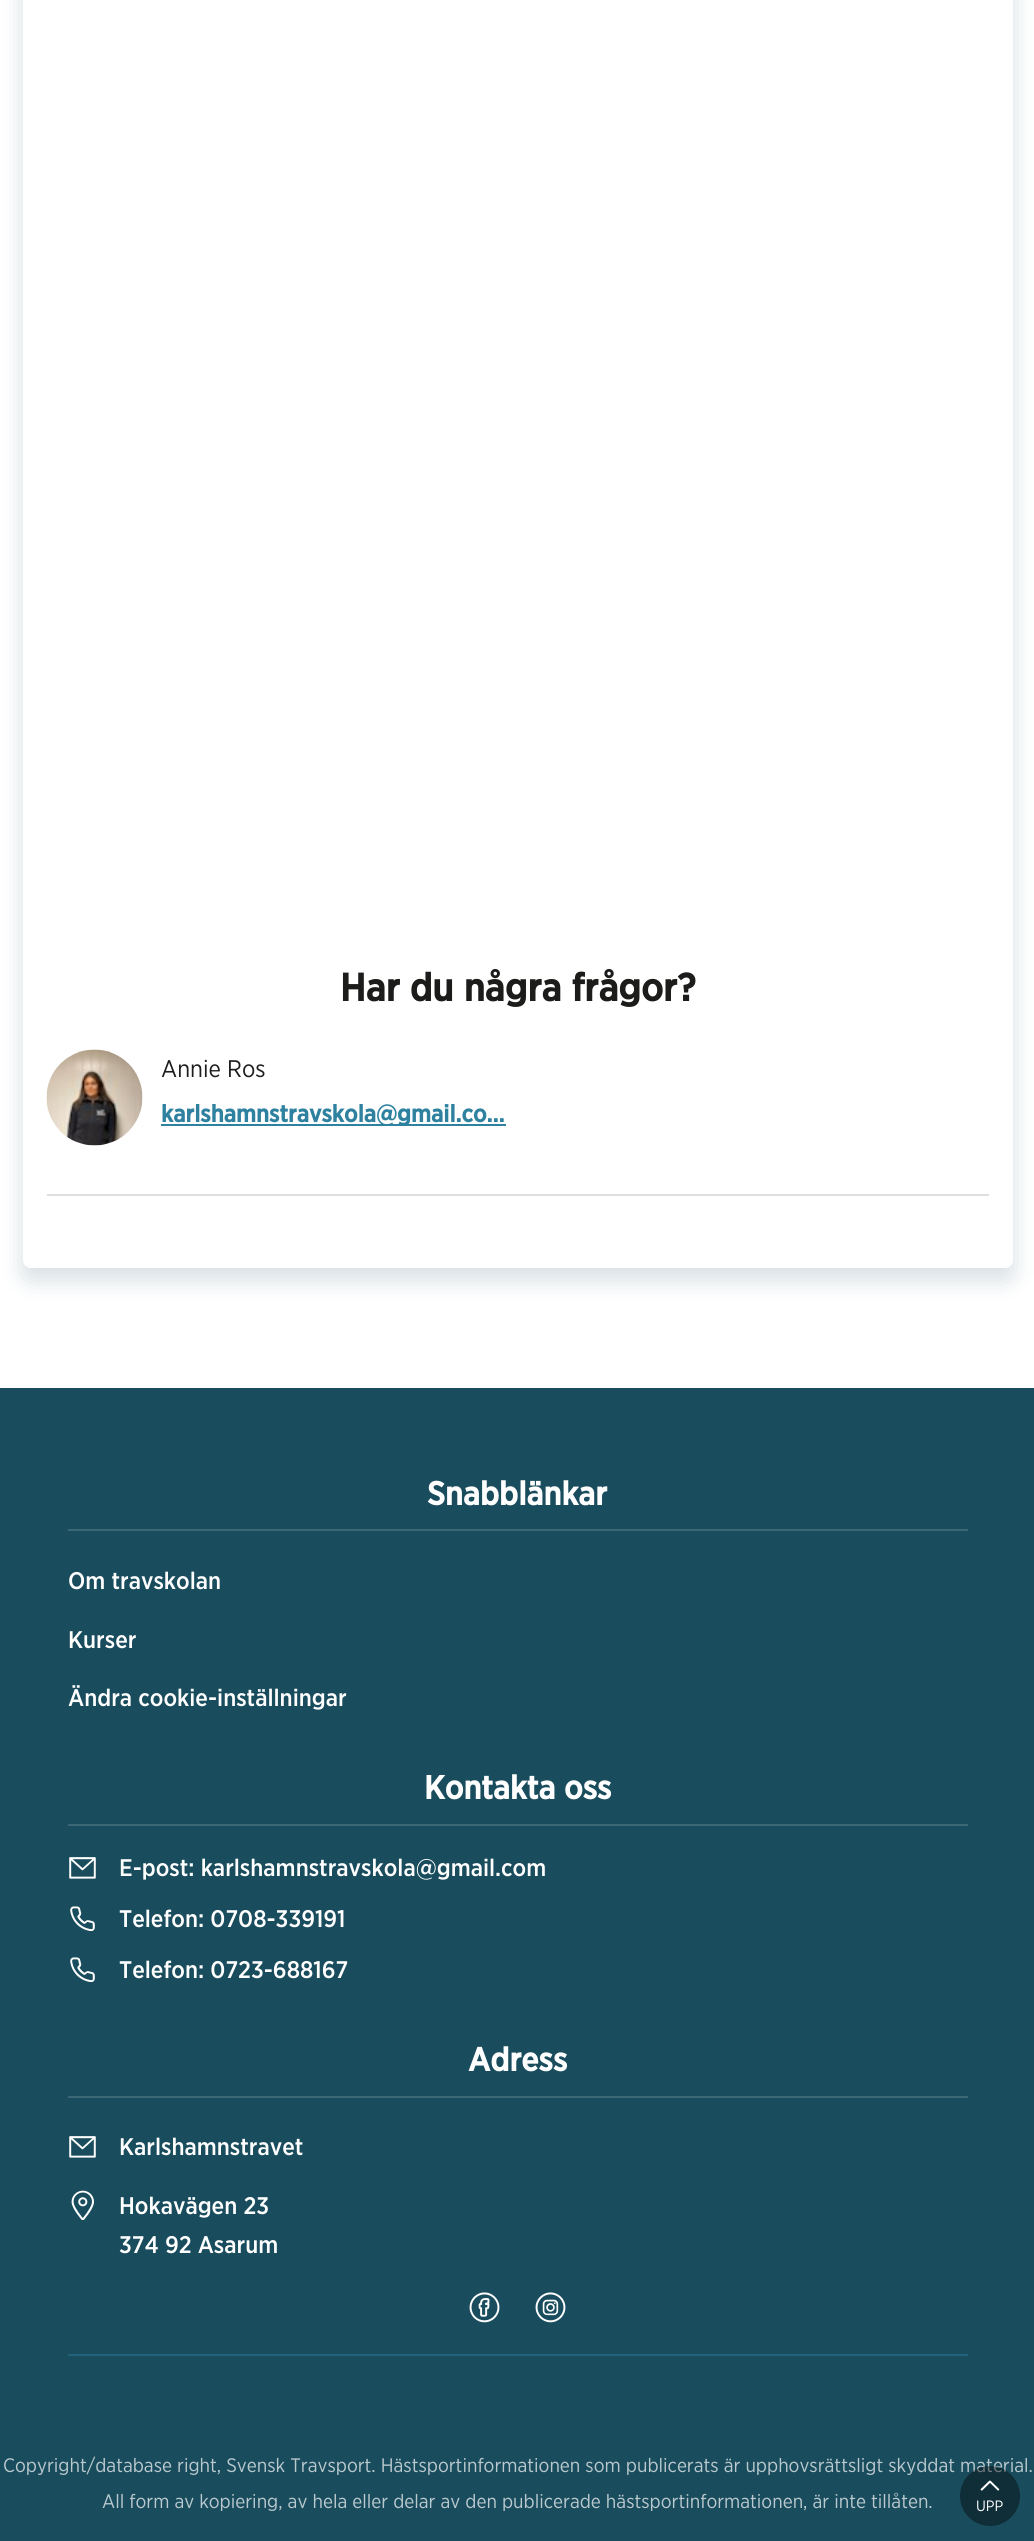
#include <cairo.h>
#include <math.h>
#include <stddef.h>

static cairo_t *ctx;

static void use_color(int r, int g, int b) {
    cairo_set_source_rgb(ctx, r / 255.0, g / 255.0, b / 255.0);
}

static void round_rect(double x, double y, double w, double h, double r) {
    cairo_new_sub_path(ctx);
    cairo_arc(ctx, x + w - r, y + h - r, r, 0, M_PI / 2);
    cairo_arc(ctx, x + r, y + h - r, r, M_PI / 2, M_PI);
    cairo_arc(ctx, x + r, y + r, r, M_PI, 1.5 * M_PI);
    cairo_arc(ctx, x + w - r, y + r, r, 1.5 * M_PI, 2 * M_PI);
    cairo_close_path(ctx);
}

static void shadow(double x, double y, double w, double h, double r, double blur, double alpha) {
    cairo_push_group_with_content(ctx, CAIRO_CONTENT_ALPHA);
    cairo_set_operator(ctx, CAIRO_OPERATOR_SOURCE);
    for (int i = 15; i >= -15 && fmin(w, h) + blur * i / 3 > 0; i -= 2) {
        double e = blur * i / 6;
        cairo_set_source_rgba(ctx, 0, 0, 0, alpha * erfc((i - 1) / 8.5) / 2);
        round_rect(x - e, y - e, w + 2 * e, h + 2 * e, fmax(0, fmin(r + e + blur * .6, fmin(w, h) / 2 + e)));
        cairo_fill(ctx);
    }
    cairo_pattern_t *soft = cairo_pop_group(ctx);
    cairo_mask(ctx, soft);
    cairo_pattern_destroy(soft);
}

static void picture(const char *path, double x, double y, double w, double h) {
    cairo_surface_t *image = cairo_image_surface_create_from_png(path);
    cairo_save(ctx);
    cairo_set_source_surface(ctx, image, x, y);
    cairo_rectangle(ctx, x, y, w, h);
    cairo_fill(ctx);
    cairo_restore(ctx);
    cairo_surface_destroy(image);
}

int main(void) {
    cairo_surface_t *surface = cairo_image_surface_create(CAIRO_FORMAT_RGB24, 1034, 2541);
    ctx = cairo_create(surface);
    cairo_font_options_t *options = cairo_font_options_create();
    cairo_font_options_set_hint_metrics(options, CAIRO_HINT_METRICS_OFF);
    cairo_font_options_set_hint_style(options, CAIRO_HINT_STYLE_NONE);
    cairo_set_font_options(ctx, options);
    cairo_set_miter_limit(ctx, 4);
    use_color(255, 255, 255);
    cairo_paint(ctx);
    use_color(3, 53, 76);
    shadow(23, -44, 990, 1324, 8, 12, 0.16);
    use_color(255, 255, 255);
    round_rect(23, -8, 990, 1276, 8);
    cairo_fill(ctx);
    use_color(222, 222, 223);
    cairo_rectangle(ctx, 47, 1194, 942, 2);
    cairo_fill(ctx);
    cairo_select_font_face(ctx, "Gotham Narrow", CAIRO_FONT_SLANT_NORMAL, CAIRO_FONT_WEIGHT_BOLD);
    cairo_set_font_size(ctx, 39);
    use_color(28, 28, 27);
    cairo_move_to(ctx, 340, 1001);
    cairo_show_text(ctx, "Har du några frågor?");
    picture("img1.png", 46, 1049, 97, 97);
    cairo_select_font_face(ctx, "Gotham Narrow", CAIRO_FONT_SLANT_NORMAL, CAIRO_FONT_WEIGHT_NORMAL);
    cairo_set_font_size(ctx, 24);
    cairo_move_to(ctx, 161, 1077);
    cairo_show_text(ctx, "Annie Ros");
    use_color(46, 129, 159);
    cairo_rectangle(ctx, 161, 1124, 345, 2);
    cairo_fill(ctx);
    cairo_select_font_face(ctx, "Gotham Narrow", CAIRO_FONT_SLANT_NORMAL, CAIRO_FONT_WEIGHT_BOLD);
    cairo_move_to(ctx, 161, 1122);
    cairo_show_text(ctx, "karlshamnstravskola@gmail.co…");
    use_color(25, 76, 93);
    cairo_rectangle(ctx, 0, 1388, 1034, 1153);
    cairo_fill(ctx);
    use_color(60, 103, 117);
    cairo_rectangle(ctx, 68, 1529, 900, 2);
    cairo_fill(ctx);
    cairo_set_font_size(ctx, 33);
    use_color(255, 255, 255);
    cairo_move_to(ctx, 427, 1505);
    cairo_show_text(ctx, "Snabblänkar");
    cairo_select_font_face(ctx, "Gotham Narrow Medium", CAIRO_FONT_SLANT_NORMAL, CAIRO_FONT_WEIGHT_NORMAL);
    cairo_set_font_size(ctx, 24);
    cairo_move_to(ctx, 68, 1589);
    cairo_show_text(ctx, "Om travskolan");
    cairo_move_to(ctx, 68, 1648);
    cairo_show_text(ctx, "Kurser");
    cairo_move_to(ctx, 68, 1706);
    cairo_show_text(ctx, "Ändra cookie-inställningar");
    use_color(60, 103, 117);
    cairo_rectangle(ctx, 68, 1824, 900, 2);
    cairo_fill(ctx);
    cairo_select_font_face(ctx, "Gotham Narrow", CAIRO_FONT_SLANT_NORMAL, CAIRO_FONT_WEIGHT_BOLD);
    cairo_set_font_size(ctx, 33);
    use_color(255, 255, 255);
    cairo_move_to(ctx, 424, 1799);
    cairo_show_text(ctx, "Kontakta oss");
    picture("img2.png", 69, 1857, 27, 22);
    cairo_select_font_face(ctx, "Gotham Narrow Medium", CAIRO_FONT_SLANT_NORMAL, CAIRO_FONT_WEIGHT_NORMAL);
    cairo_set_font_size(ctx, 24);
    cairo_move_to(ctx, 119, 1876);
    cairo_show_text(ctx, "E-post: karlshamnstravskola@gmail.com");
    picture("img3.png", 70, 1906, 25, 26);
    cairo_move_to(ctx, 119, 1927);
    cairo_show_text(ctx, "Telefon: 0708-339191");
    picture("img3.png", 70, 1957, 25, 26);
    cairo_move_to(ctx, 119, 1978);
    cairo_show_text(ctx, "Telefon: 0723-688167");
    use_color(60, 103, 117);
    cairo_rectangle(ctx, 68, 2096, 900, 2);
    cairo_fill(ctx);
    cairo_select_font_face(ctx, "Gotham Narrow", CAIRO_FONT_SLANT_NORMAL, CAIRO_FONT_WEIGHT_BOLD);
    cairo_set_font_size(ctx, 33);
    use_color(255, 255, 255);
    cairo_move_to(ctx, 468, 2071);
    cairo_show_text(ctx, "Adress");
    picture("img2.png", 69, 2136, 27, 22);
    cairo_select_font_face(ctx, "Gotham Narrow Medium", CAIRO_FONT_SLANT_NORMAL, CAIRO_FONT_WEIGHT_NORMAL);
    cairo_set_font_size(ctx, 24);
    cairo_move_to(ctx, 119, 2155);
    cairo_show_text(ctx, "Karlshamnstravet");
    picture("img4.png", 71, 2190, 23, 31);
    cairo_move_to(ctx, 119, 2214);
    cairo_show_text(ctx, "Hokavägen 23");
    cairo_move_to(ctx, 119, 2253);
    cairo_show_text(ctx, "374 92 Asarum");
    picture("img5.png", 469, 2292, 31, 31);
    picture("img6.png", 535, 2292, 31, 31);
    use_color(34, 97, 120);
    cairo_rectangle(ctx, 68, 2354, 900, 2);
    cairo_fill(ctx);
    cairo_select_font_face(ctx, "Gotham Narrow", CAIRO_FONT_SLANT_NORMAL, CAIRO_FONT_WEIGHT_NORMAL);
    cairo_set_font_size(ctx, 19.5);
    use_color(186, 201, 206);
    cairo_move_to(ctx, 3, 2472);
    cairo_show_text(ctx, "Copyright/database right, Svensk Travsport. Hästsportinformationen som publicerats är upphovsrättsligt skyddat material.");
    cairo_move_to(ctx, 102, 2508);
    cairo_show_text(ctx, "All form av kopiering, av hela eller delar av den publicerade hästsportinformationen, är inte tillåten.");
    cairo_set_source_rgba(ctx, 0, 0, 0, 0.4);
    cairo_new_path(ctx);
    cairo_arc(ctx, 990, 2496, 30, 0, 2 * M_PI);
    cairo_fill(ctx);
    picture("img7.png", 980, 2480, 20, 11);
    cairo_set_font_size(ctx, 15);
    use_color(255, 255, 255);
    cairo_move_to(ctx, 976, 2511);
    cairo_show_text(ctx, "UPP");
    cairo_surface_write_to_png(surface, "result.png");
    cairo_font_options_destroy(options);
    cairo_destroy(ctx);
    cairo_surface_destroy(surface);
    return 0;
}
